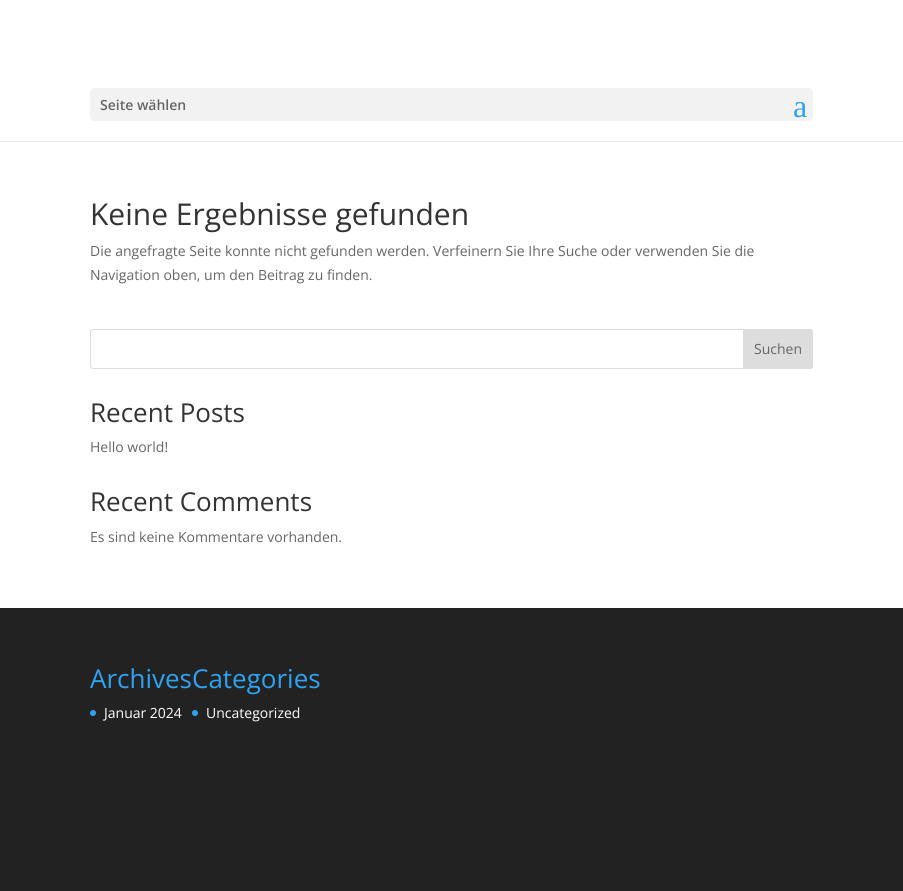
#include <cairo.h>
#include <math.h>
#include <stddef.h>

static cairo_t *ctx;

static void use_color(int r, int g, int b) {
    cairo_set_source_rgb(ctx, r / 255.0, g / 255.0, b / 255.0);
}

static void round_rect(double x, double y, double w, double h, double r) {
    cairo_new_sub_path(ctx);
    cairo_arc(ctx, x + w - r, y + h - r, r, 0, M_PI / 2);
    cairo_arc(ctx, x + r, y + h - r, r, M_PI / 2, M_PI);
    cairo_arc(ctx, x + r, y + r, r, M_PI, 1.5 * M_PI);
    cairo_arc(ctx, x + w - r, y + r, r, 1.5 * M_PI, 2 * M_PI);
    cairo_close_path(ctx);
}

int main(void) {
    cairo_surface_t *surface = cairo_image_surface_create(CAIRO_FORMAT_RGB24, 903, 891);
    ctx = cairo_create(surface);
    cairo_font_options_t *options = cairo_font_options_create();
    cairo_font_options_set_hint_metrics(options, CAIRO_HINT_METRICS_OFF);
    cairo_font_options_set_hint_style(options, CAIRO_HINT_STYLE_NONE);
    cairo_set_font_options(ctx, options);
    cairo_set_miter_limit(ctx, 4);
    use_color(255, 255, 255);
    cairo_paint(ctx);
    use_color(230, 230, 230);
    cairo_rectangle(ctx, 0, 141, 903, 1);
    cairo_fill(ctx);
    use_color(242, 242, 242);
    round_rect(90, 88, 723, 33, 5);
    cairo_fill(ctx);
    cairo_select_font_face(ctx, "Open Sans SemiBold", CAIRO_FONT_SLANT_NORMAL, CAIRO_FONT_WEIGHT_NORMAL);
    cairo_set_font_size(ctx, 14);
    use_color(102, 102, 102);
    cairo_move_to(ctx, 100, 110);
    cairo_show_text(ctx, "Seite wählen");
    cairo_select_font_face(ctx, "Liberation Serif", CAIRO_FONT_SLANT_NORMAL, CAIRO_FONT_WEIGHT_NORMAL);
    cairo_set_font_size(ctx, 32);
    use_color(46, 163, 242);
    cairo_move_to(ctx, 793, 117);
    cairo_show_text(ctx, "a");
    cairo_select_font_face(ctx, "Open Sans", CAIRO_FONT_SLANT_NORMAL, CAIRO_FONT_WEIGHT_NORMAL);
    cairo_set_font_size(ctx, 30);
    use_color(51, 51, 51);
    cairo_move_to(ctx, 90, 225);
    cairo_show_text(ctx, "Keine Ergebnisse gefunden");
    cairo_set_font_size(ctx, 14);
    use_color(102, 102, 102);
    cairo_move_to(ctx, 90, 256);
    cairo_show_text(ctx, "Die angefragte Seite konnte nicht gefunden werden. Verfeinern Sie Ihre Suche oder verwenden Sie die");
    cairo_move_to(ctx, 90, 280);
    cairo_show_text(ctx, "Navigation oben, um den Beitrag zu finden.");
    round_rect(90.5, 329.5, 722, 39, 2.5);
    use_color(221, 221, 221);
    cairo_set_line_width(ctx, 1);
    cairo_stroke(ctx);
    cairo_new_path(ctx);
    cairo_move_to(ctx, 743.5, 329.5);
    cairo_line_to(ctx, 810, 329.5);
    cairo_curve_to(ctx, 811.5, 329.5, 812.5, 330.5, 812.5, 332);
    cairo_line_to(ctx, 812.5, 366);
    cairo_curve_to(ctx, 812.5, 367.5, 811.5, 368.5, 810, 368.5);
    cairo_line_to(ctx, 743.5, 368.5);
    cairo_close_path(ctx);
    cairo_fill_preserve(ctx);
    cairo_stroke(ctx);
    use_color(102, 102, 102);
    cairo_move_to(ctx, 754, 354);
    cairo_show_text(ctx, "Suchen");
    cairo_set_font_size(ctx, 26);
    use_color(51, 51, 51);
    cairo_move_to(ctx, 90, 422);
    cairo_show_text(ctx, "Recent Posts");
    cairo_set_font_size(ctx, 14);
    use_color(102, 102, 102);
    cairo_move_to(ctx, 90, 452);
    cairo_show_text(ctx, "Hello world!");
    cairo_set_font_size(ctx, 26);
    use_color(51, 51, 51);
    cairo_move_to(ctx, 90, 511);
    cairo_show_text(ctx, "Recent Comments");
    cairo_set_font_size(ctx, 14);
    use_color(102, 102, 102);
    cairo_move_to(ctx, 90, 542);
    cairo_show_text(ctx, "Es sind keine Kommentare vorhanden.");
    use_color(34, 34, 34);
    cairo_rectangle(ctx, 0, 608, 903, 283);
    cairo_fill(ctx);
    cairo_set_font_size(ctx, 26);
    use_color(46, 163, 242);
    cairo_move_to(ctx, 90, 688);
    cairo_show_text(ctx, "ArchivesCategories");
    cairo_new_path(ctx);
    cairo_arc(ctx, 93, 713, 3, 0, 2 * M_PI);
    cairo_fill(ctx);
    cairo_set_font_size(ctx, 14);
    use_color(255, 255, 255);
    cairo_move_to(ctx, 104, 718);
    cairo_show_text(ctx, "Januar 2024");
    use_color(46, 163, 242);
    cairo_new_path(ctx);
    cairo_arc(ctx, 195, 713, 3, 0, 2 * M_PI);
    cairo_fill(ctx);
    use_color(255, 255, 255);
    cairo_move_to(ctx, 206, 718);
    cairo_show_text(ctx, "Uncategorized");
    cairo_surface_write_to_png(surface, "result.png");
    cairo_font_options_destroy(options);
    cairo_destroy(ctx);
    cairo_surface_destroy(surface);
    return 0;
}
